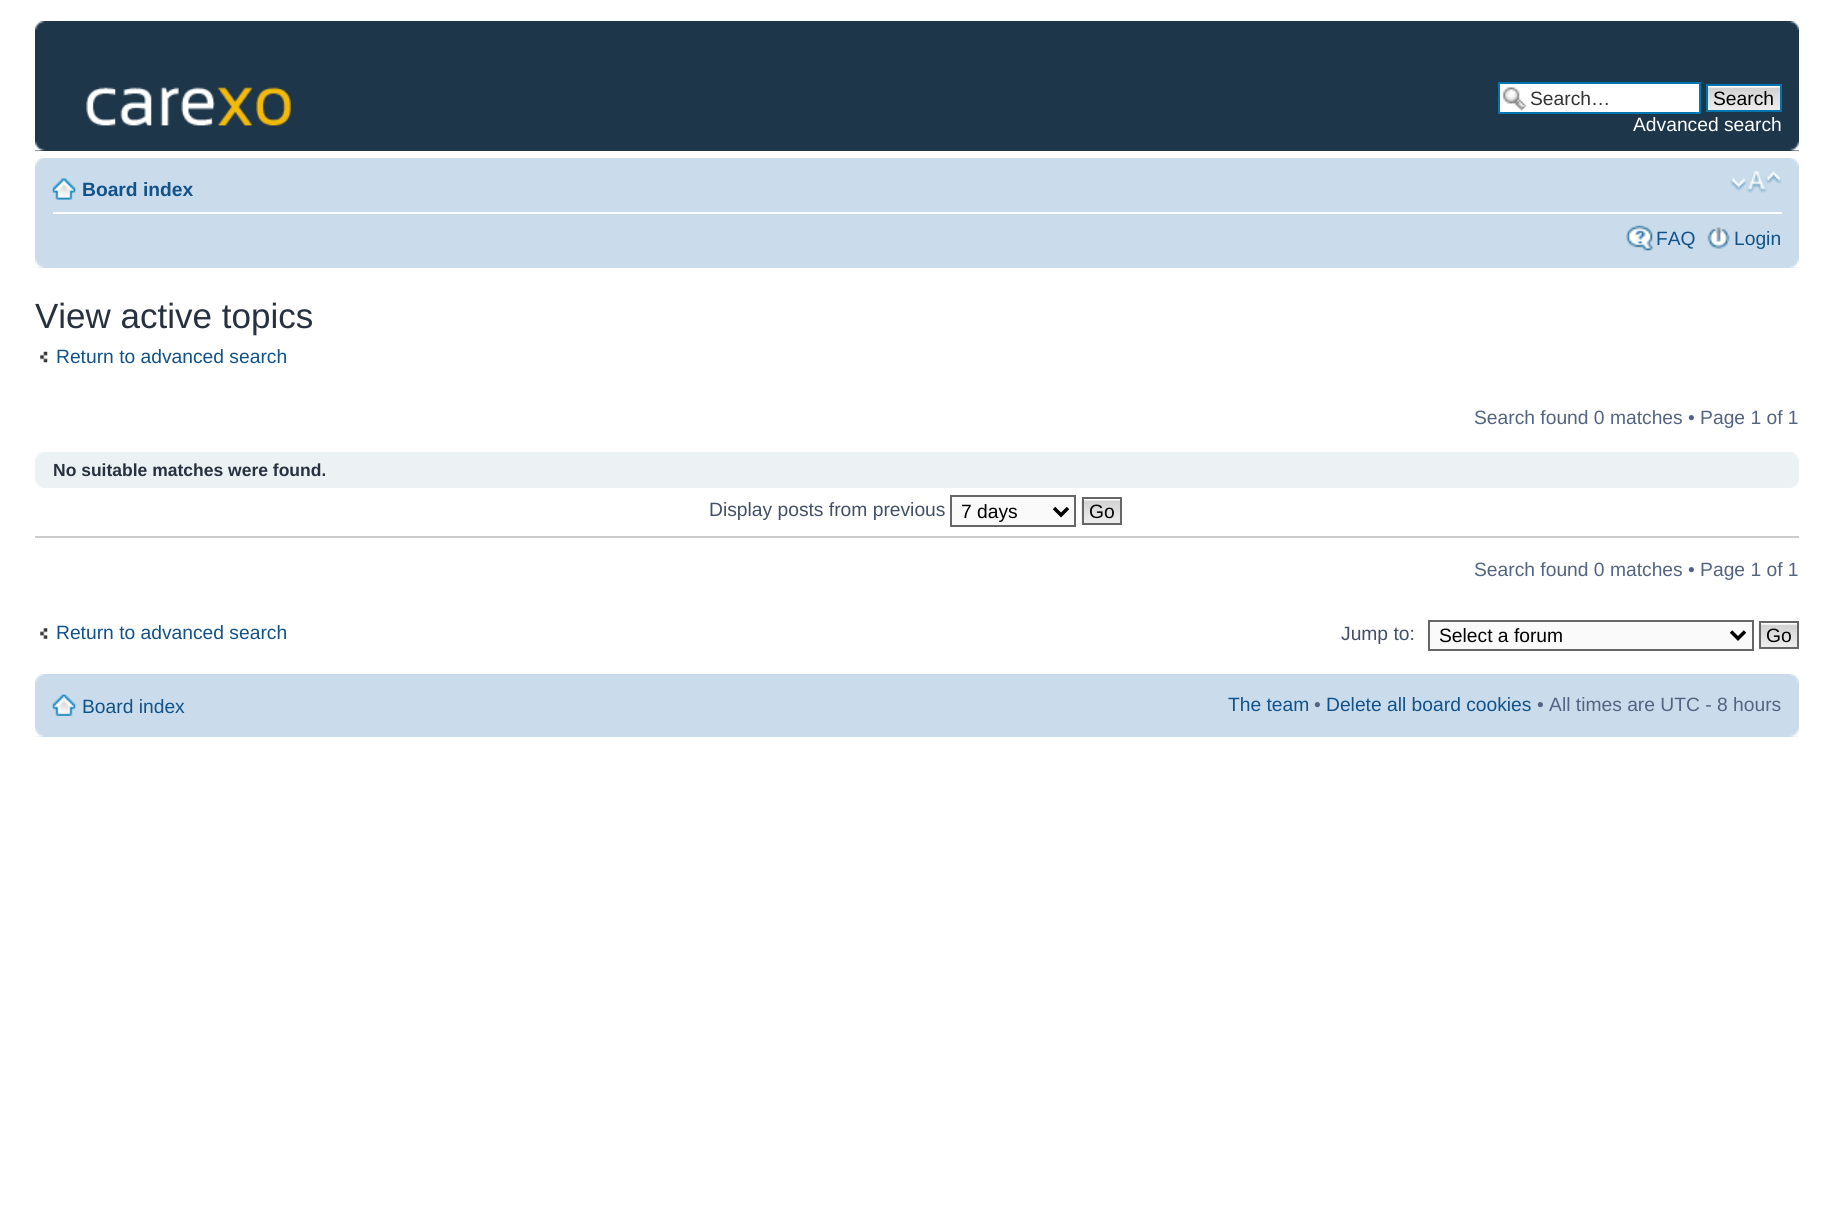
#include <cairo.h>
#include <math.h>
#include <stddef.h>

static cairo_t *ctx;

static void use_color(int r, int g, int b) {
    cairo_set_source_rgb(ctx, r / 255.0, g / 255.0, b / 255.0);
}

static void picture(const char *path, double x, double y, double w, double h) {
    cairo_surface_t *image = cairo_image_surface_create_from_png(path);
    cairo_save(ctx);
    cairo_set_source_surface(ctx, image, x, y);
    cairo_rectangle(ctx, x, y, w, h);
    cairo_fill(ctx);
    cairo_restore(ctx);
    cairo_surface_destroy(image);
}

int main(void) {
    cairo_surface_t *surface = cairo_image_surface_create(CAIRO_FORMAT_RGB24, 1833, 1211);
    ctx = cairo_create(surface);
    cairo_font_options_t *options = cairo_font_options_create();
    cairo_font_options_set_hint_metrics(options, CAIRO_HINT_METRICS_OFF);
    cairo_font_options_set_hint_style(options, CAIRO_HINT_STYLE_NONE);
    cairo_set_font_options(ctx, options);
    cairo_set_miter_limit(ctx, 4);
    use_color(255, 255, 255);
    cairo_paint(ctx);
    use_color(29, 54, 74);
    cairo_rectangle(ctx, 35, 21, 1764, 130);
    cairo_fill(ctx);
    picture("img1.png", 35, 21, 10, 9);
    picture("img2.png", 1789, 21, 10, 9);
    picture("img3.png", 86, 87, 205, 39);
    use_color(255, 255, 255);
    cairo_rectangle(ctx, 1500, 84, 199, 28);
    cairo_fill(ctx);
    picture("img4.png", 1502, 87, 25, 24);
    cairo_rectangle(ctx, 1499, 83, 201, 30);
    use_color(0, 117, 176);
    cairo_stroke(ctx);
    cairo_select_font_face(ctx, "Liberation Sans", CAIRO_FONT_SLANT_NORMAL, CAIRO_FONT_WEIGHT_NORMAL);
    cairo_set_font_size(ctx, 19.25);
    use_color(51, 51, 51);
    cairo_move_to(ctx, 1530, 105);
    cairo_show_text(ctx, "Search…");
    picture("img5.png", 1708, 86, 72, 24);
    cairo_rectangle(ctx, 1707, 85, 74, 26);
    use_color(0, 117, 176);
    cairo_stroke(ctx);
    use_color(0, 0, 0);
    cairo_move_to(ctx, 1713, 105);
    cairo_show_text(ctx, "Search");
    use_color(255, 255, 255);
    cairo_move_to(ctx, 1633, 131);
    cairo_show_text(ctx, "Advanced search");
    picture("img6.png", 35, 141, 10, 10);
    picture("img7.png", 1790, 141, 9, 10);
    use_color(202, 220, 235);
    cairo_rectangle(ctx, 35, 158, 1764, 110);
    cairo_fill(ctx);
    picture("img8.png", 35, 158, 9, 8);
    picture("img9.png", 1790, 158, 9, 8);
    use_color(255, 255, 255);
    cairo_rectangle(ctx, 53, 212, 1729, 2);
    cairo_fill(ctx);
    picture("img10.png", 52, 178, 24, 22);
    cairo_select_font_face(ctx, "Liberation Sans", CAIRO_FONT_SLANT_NORMAL, CAIRO_FONT_WEIGHT_BOLD);
    use_color(16, 82, 137);
    cairo_move_to(ctx, 82, 196);
    cairo_show_text(ctx, "Board index");
    picture("img11.png", 1730, 171, 52, 22);
    picture("img12.png", 1626, 225, 28, 26);
    cairo_select_font_face(ctx, "Liberation Sans", CAIRO_FONT_SLANT_NORMAL, CAIRO_FONT_WEIGHT_NORMAL);
    cairo_move_to(ctx, 1656, 245);
    cairo_show_text(ctx, "FAQ");
    picture("img13.png", 1707, 227, 23, 22);
    cairo_move_to(ctx, 1734, 245);
    cairo_show_text(ctx, "Login");
    picture("img14.png", 35, 259, 9, 9);
    picture("img15.png", 1790, 259, 9, 9);
    cairo_set_font_size(ctx, 35);
    use_color(40, 49, 63);
    cairo_move_to(ctx, 35, 328);
    cairo_show_text(ctx, "View active topics");
    picture("img16.png", 40, 351, 8, 12);
    cairo_set_font_size(ctx, 19.25);
    use_color(16, 82, 137);
    cairo_move_to(ctx, 56, 363);
    cairo_show_text(ctx, "Return to advanced search");
    use_color(83, 100, 130);
    cairo_move_to(ctx, 1474, 424);
    cairo_show_text(ctx, "Search found 0 matches • Page 1 of 1");
    use_color(236, 241, 243);
    cairo_rectangle(ctx, 35, 452, 1764, 36);
    cairo_fill(ctx);
    picture("img17.png", 35, 452, 8, 8);
    picture("img18.png", 1791, 452, 8, 8);
    cairo_select_font_face(ctx, "Liberation Sans", CAIRO_FONT_SLANT_NORMAL, CAIRO_FONT_WEIGHT_BOLD);
    cairo_set_font_size(ctx, 17.5);
    use_color(40, 49, 63);
    cairo_move_to(ctx, 53, 476);
    cairo_show_text(ctx, "No suitable matches were found.");
    picture("img19.png", 35, 480, 8, 8);
    picture("img20.png", 1791, 480, 8, 8);
    cairo_select_font_face(ctx, "Liberation Sans", CAIRO_FONT_SLANT_NORMAL, CAIRO_FONT_WEIGHT_NORMAL);
    cairo_set_font_size(ctx, 19.25);
    use_color(66, 80, 103);
    cairo_move_to(ctx, 709, 516);
    cairo_show_text(ctx, "Display posts from previous");
    use_color(250, 250, 250);
    cairo_rectangle(ctx, 951, 496, 124, 30);
    cairo_fill_preserve(ctx);
    use_color(102, 102, 102);
    cairo_stroke(ctx);
    cairo_new_path(ctx);
    cairo_move_to(ctx, 1054, 508);
    cairo_line_to(ctx, 1061, 515);
    cairo_line_to(ctx, 1068, 508);
    use_color(0, 0, 0);
    cairo_set_line_width(ctx, 3.5);
    cairo_stroke(ctx);
    cairo_move_to(ctx, 961, 518);
    cairo_show_text(ctx, "7 days");
    picture("img21.png", 1081, 499, 39, 26);
    cairo_rectangle(ctx, 1083, 498, 38, 26);
    use_color(102, 102, 102);
    cairo_set_line_width(ctx, 2);
    cairo_stroke(ctx);
    use_color(0, 0, 0);
    cairo_move_to(ctx, 1089, 518);
    cairo_show_text(ctx, "Go");
    use_color(204, 204, 204);
    cairo_rectangle(ctx, 35, 536, 1764, 2);
    cairo_fill(ctx);
    use_color(83, 100, 130);
    cairo_move_to(ctx, 1474, 576);
    cairo_show_text(ctx, "Search found 0 matches • Page 1 of 1");
    picture("img22.png", 40, 628, 8, 11);
    use_color(16, 82, 137);
    cairo_move_to(ctx, 56, 639);
    cairo_show_text(ctx, "Return to advanced search");
    use_color(66, 80, 103);
    cairo_move_to(ctx, 1341, 640);
    cairo_show_text(ctx, "Jump to:");
    use_color(250, 250, 250);
    cairo_rectangle(ctx, 1429, 621, 324, 29);
    cairo_fill_preserve(ctx);
    use_color(102, 102, 102);
    cairo_stroke(ctx);
    cairo_new_path(ctx);
    cairo_move_to(ctx, 1731, 631.5);
    cairo_line_to(ctx, 1738, 638.5);
    cairo_line_to(ctx, 1745, 631.5);
    use_color(0, 0, 0);
    cairo_set_line_width(ctx, 3.5);
    cairo_stroke(ctx);
    cairo_move_to(ctx, 1439, 642);
    cairo_show_text(ctx, "Select a forum");
    picture("img23.png", 1758, 623, 41, 27);
    cairo_rectangle(ctx, 1760, 622, 38, 26);
    use_color(102, 102, 102);
    cairo_set_line_width(ctx, 2);
    cairo_stroke(ctx);
    use_color(0, 0, 0);
    cairo_move_to(ctx, 1766, 642);
    cairo_show_text(ctx, "Go");
    use_color(202, 220, 235);
    cairo_rectangle(ctx, 35, 674, 1764, 63);
    cairo_fill(ctx);
    picture("img24.png", 35, 674, 9, 9);
    picture("img25.png", 1790, 674, 9, 9);
    picture("img26.png", 52, 694, 24, 22);
    use_color(16, 82, 137);
    cairo_move_to(ctx, 82, 713);
    cairo_show_text(ctx, "Board index");
    cairo_move_to(ctx, 1228, 711);
    cairo_show_text(ctx, "The team");
    use_color(83, 100, 130);
    cairo_move_to(ctx, 1314, 711);
    cairo_show_text(ctx, "•");
    use_color(16, 82, 137);
    cairo_move_to(ctx, 1326, 711);
    cairo_show_text(ctx, "Delete all board cookies");
    use_color(83, 100, 130);
    cairo_move_to(ctx, 1537, 711);
    cairo_show_text(ctx, "• All times are UTC - 8 hours");
    picture("img14.png", 35, 728, 9, 9);
    picture("img15.png", 1790, 728, 9, 9);
    cairo_surface_write_to_png(surface, "result.png");
    cairo_font_options_destroy(options);
    cairo_destroy(ctx);
    cairo_surface_destroy(surface);
    return 0;
}
